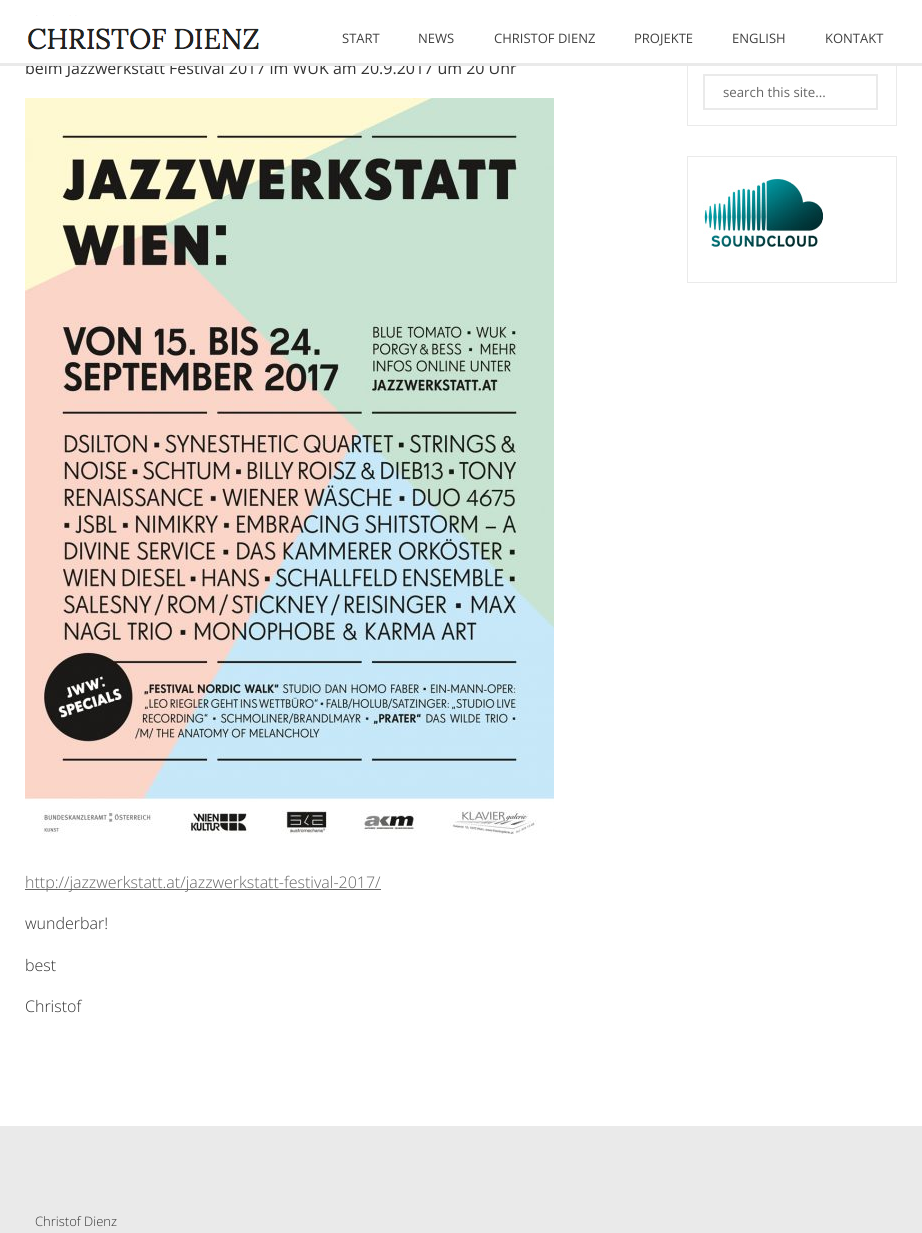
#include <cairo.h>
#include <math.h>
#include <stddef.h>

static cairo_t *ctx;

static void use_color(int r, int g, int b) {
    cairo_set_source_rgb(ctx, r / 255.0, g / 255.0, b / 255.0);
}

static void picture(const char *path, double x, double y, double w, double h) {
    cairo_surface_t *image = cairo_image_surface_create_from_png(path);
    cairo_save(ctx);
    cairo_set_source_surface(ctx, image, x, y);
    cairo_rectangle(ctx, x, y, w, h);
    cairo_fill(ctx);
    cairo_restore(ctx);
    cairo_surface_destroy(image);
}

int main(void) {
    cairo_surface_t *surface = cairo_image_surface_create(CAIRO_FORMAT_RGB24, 922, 1233);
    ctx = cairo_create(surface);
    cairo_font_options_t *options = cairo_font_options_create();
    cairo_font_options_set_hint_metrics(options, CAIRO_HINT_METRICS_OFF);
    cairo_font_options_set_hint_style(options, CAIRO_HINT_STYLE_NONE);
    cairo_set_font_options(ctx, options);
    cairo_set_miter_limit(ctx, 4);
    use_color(255, 255, 255);
    cairo_paint(ctx);
    cairo_select_font_face(ctx, "Open Sans", CAIRO_FONT_SLANT_NORMAL, CAIRO_FONT_WEIGHT_NORMAL);
    cairo_set_font_size(ctx, 16);
    use_color(51, 51, 51);
    cairo_move_to(ctx, 25, 74);
    cairo_show_text(ctx, "beim Jazzwerkstatt Festival 2017 im WUK am 20.9.2017 um 20 Uhr");
    cairo_rectangle(ctx, 687.5, 48.5, 209, 77);
    use_color(234, 234, 234);
    cairo_set_line_width(ctx, 1);
    cairo_stroke(ctx);
    use_color(255, 255, 255);
    cairo_rectangle(ctx, 26, 48, 871, 15);
    cairo_fill(ctx);
    use_color(234, 234, 234);
    cairo_rectangle(ctx, 0, 63, 922, 3);
    cairo_fill(ctx);
    picture("img1.png", 27, 15, 232, 35);
    cairo_set_font_size(ctx, 13);
    use_color(64, 64, 64);
    cairo_move_to(ctx, 342, 43);
    cairo_show_text(ctx, "START");
    cairo_move_to(ctx, 418, 43);
    cairo_show_text(ctx, "NEWS");
    cairo_move_to(ctx, 494, 43);
    cairo_show_text(ctx, "CHRISTOF DIENZ");
    cairo_move_to(ctx, 634, 43);
    cairo_show_text(ctx, "PROJEKTE");
    cairo_move_to(ctx, 732, 43);
    cairo_show_text(ctx, "ENGLISH");
    cairo_move_to(ctx, 825, 43);
    cairo_show_text(ctx, "KONTAKT");
    picture("img2.png", 25, 98, 529, 736);
    use_color(102, 102, 102);
    cairo_rectangle(ctx, 25, 889, 356, 1);
    cairo_fill(ctx);
    cairo_select_font_face(ctx, "Open Sans Light", CAIRO_FONT_SLANT_NORMAL, CAIRO_FONT_WEIGHT_NORMAL);
    cairo_set_font_size(ctx, 16);
    cairo_move_to(ctx, 25, 888);
    cairo_show_text(ctx, "http://jazzwerkstatt.at/jazzwerkstatt-festival-2017/");
    use_color(51, 51, 51);
    cairo_move_to(ctx, 25, 929);
    cairo_show_text(ctx, "wunderbar!");
    cairo_move_to(ctx, 25, 971);
    cairo_show_text(ctx, "best");
    cairo_move_to(ctx, 25, 1012);
    cairo_show_text(ctx, "Christof");
    cairo_rectangle(ctx, 704, 75, 173, 34);
    use_color(234, 234, 234);
    cairo_set_line_width(ctx, 2);
    cairo_stroke(ctx);
    cairo_select_font_face(ctx, "Open Sans", CAIRO_FONT_SLANT_NORMAL, CAIRO_FONT_WEIGHT_NORMAL);
    cairo_set_font_size(ctx, 13.25);
    use_color(102, 102, 102);
    cairo_move_to(ctx, 723, 97);
    cairo_show_text(ctx, "search this site...");
    cairo_rectangle(ctx, 687.5, 156.5, 209, 126);
    use_color(234, 234, 234);
    cairo_set_line_width(ctx, 1);
    cairo_stroke(ctx);
    picture("img3.png", 703, 178, 120, 69);
    cairo_rectangle(ctx, 0, 1126, 922, 107);
    cairo_fill(ctx);
    cairo_select_font_face(ctx, "Open Sans Light", CAIRO_FONT_SLANT_NORMAL, CAIRO_FONT_WEIGHT_NORMAL);
    cairo_set_font_size(ctx, 13);
    use_color(51, 51, 51);
    cairo_move_to(ctx, 35, 1226);
    cairo_show_text(ctx, "Christof Dienz");
    cairo_surface_write_to_png(surface, "result.png");
    cairo_font_options_destroy(options);
    cairo_destroy(ctx);
    cairo_surface_destroy(surface);
    return 0;
}
